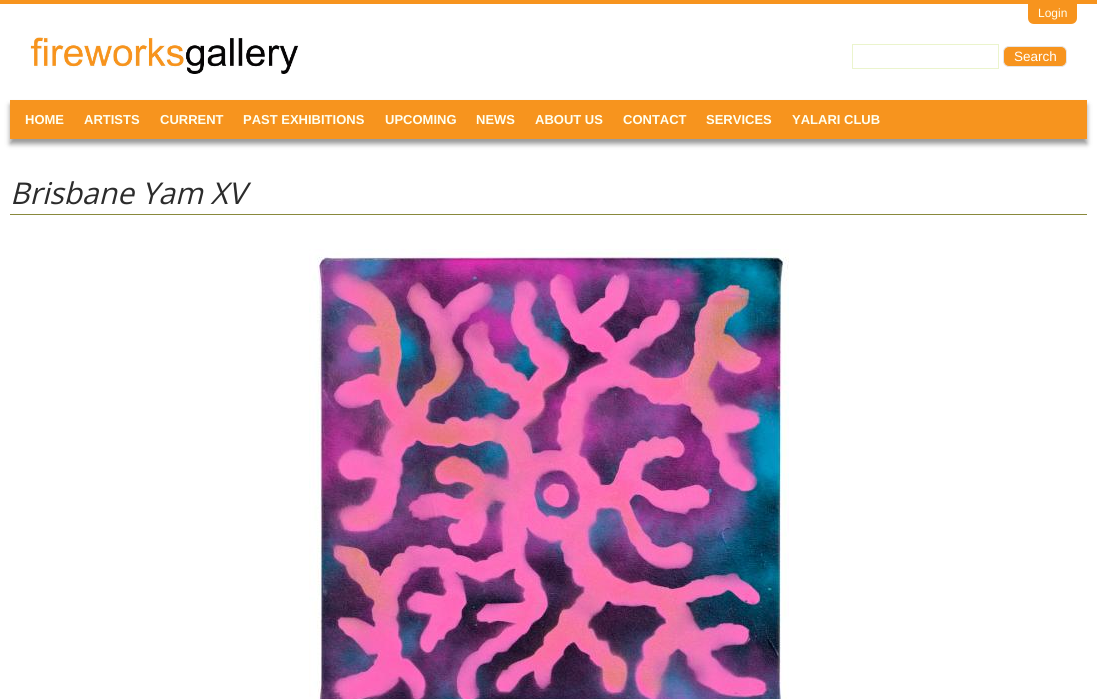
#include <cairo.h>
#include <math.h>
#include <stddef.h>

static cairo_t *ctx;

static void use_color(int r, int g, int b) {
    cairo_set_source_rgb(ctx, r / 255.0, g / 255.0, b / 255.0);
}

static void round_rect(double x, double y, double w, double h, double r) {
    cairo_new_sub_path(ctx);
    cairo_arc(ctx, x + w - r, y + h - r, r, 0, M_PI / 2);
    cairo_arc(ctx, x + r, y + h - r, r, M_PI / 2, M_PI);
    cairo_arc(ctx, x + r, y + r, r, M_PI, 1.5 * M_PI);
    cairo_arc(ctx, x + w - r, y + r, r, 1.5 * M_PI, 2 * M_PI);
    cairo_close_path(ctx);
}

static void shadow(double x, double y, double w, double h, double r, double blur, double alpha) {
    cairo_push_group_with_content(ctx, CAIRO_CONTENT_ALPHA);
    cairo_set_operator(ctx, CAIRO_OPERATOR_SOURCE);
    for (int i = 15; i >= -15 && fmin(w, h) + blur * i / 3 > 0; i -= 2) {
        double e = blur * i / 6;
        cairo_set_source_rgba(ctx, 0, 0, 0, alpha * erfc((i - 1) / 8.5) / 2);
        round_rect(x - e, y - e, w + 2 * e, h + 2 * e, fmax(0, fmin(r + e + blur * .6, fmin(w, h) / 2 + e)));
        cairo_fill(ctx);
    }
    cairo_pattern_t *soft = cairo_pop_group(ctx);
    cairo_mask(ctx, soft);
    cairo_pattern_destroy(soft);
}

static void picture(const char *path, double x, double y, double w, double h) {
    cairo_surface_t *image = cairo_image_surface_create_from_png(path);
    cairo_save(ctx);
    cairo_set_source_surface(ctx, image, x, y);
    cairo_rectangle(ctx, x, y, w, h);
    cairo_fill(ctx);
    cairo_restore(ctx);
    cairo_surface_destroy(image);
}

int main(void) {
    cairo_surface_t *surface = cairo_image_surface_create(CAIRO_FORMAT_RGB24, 1097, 699);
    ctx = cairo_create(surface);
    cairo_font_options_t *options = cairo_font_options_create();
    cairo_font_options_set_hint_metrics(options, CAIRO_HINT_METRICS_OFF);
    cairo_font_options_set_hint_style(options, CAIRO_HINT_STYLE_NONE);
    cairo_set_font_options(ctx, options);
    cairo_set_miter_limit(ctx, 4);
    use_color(255, 255, 255);
    cairo_paint(ctx);
    use_color(247, 148, 30);
    cairo_rectangle(ctx, 0, 0, 1097, 4);
    cairo_fill(ctx);
    cairo_new_path(ctx);
    cairo_move_to(ctx, 1028, 4);
    cairo_line_to(ctx, 1077, 4);
    cairo_line_to(ctx, 1077, 18);
    cairo_curve_to(ctx, 1077, 21.5, 1074.5, 24, 1071, 24);
    cairo_line_to(ctx, 1034, 24);
    cairo_curve_to(ctx, 1030.5, 24, 1028, 21.5, 1028, 18);
    cairo_close_path(ctx);
    cairo_fill(ctx);
    cairo_select_font_face(ctx, "Liberation Sans", CAIRO_FONT_SLANT_NORMAL, CAIRO_FONT_WEIGHT_NORMAL);
    cairo_set_font_size(ctx, 12);
    use_color(255, 255, 240);
    cairo_move_to(ctx, 1038, 17);
    cairo_show_text(ctx, "Login");
    picture("img1.png", 30, 37, 269, 37);
    cairo_rectangle(ctx, 852.5, 44.5, 146, 24);
    use_color(235, 244, 205);
    cairo_set_line_width(ctx, 1);
    cairo_stroke(ctx);
    use_color(247, 148, 30);
    round_rect(1003.5, 46.5, 63, 20, 5.5);
    cairo_fill_preserve(ctx);
    use_color(231, 231, 231);
    cairo_stroke(ctx);
    cairo_set_font_size(ctx, 13.5);
    use_color(255, 255, 255);
    cairo_move_to(ctx, 1014, 61);
    cairo_show_text(ctx, "Search");
    use_color(0, 0, 0);
    shadow(10, 105, 1077, 39, 0, 2.5, 0.4);
    use_color(247, 148, 30);
    cairo_rectangle(ctx, 10, 100, 1077, 39);
    cairo_fill(ctx);
    cairo_select_font_face(ctx, "Liberation Sans", CAIRO_FONT_SLANT_NORMAL, CAIRO_FONT_WEIGHT_BOLD);
    cairo_set_font_size(ctx, 13);
    use_color(255, 255, 240);
    cairo_move_to(ctx, 25, 124);
    cairo_show_text(ctx, "HOME");
    cairo_move_to(ctx, 84, 124);
    cairo_show_text(ctx, "ARTISTS");
    cairo_move_to(ctx, 160, 124);
    cairo_show_text(ctx, "CURRENT");
    cairo_move_to(ctx, 243, 124);
    cairo_show_text(ctx, "PAST EXHIBITIONS");
    cairo_move_to(ctx, 385, 124);
    cairo_show_text(ctx, "UPCOMING");
    cairo_move_to(ctx, 476, 124);
    cairo_show_text(ctx, "NEWS");
    cairo_move_to(ctx, 535, 124);
    cairo_show_text(ctx, "ABOUT US");
    cairo_move_to(ctx, 623, 124);
    cairo_show_text(ctx, "CONTACT");
    cairo_move_to(ctx, 706, 124);
    cairo_show_text(ctx, "SERVICES");
    cairo_move_to(ctx, 792, 124);
    cairo_show_text(ctx, "YALARI CLUB");
    use_color(137, 137, 60);
    cairo_rectangle(ctx, 10, 214, 1077, 1);
    cairo_fill(ctx);
    cairo_select_font_face(ctx, "Open Sans", CAIRO_FONT_SLANT_ITALIC, CAIRO_FONT_WEIGHT_NORMAL);
    cairo_set_font_size(ctx, 30);
    use_color(44, 44, 44);
    cairo_move_to(ctx, 10, 204);
    cairo_show_text(ctx, "Brisbane Yam XV");
    picture("img2.png", 309, 249, 480, 450);
    cairo_surface_write_to_png(surface, "result.png");
    cairo_font_options_destroy(options);
    cairo_destroy(ctx);
    cairo_surface_destroy(surface);
    return 0;
}
